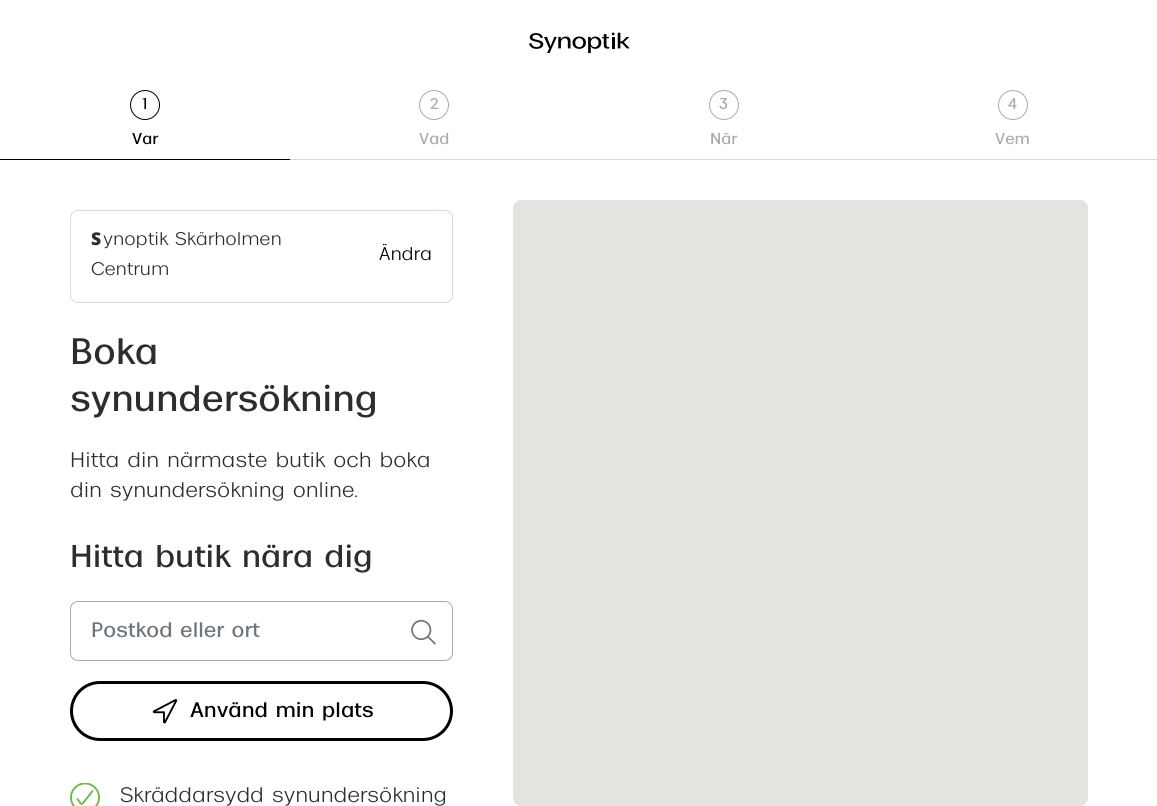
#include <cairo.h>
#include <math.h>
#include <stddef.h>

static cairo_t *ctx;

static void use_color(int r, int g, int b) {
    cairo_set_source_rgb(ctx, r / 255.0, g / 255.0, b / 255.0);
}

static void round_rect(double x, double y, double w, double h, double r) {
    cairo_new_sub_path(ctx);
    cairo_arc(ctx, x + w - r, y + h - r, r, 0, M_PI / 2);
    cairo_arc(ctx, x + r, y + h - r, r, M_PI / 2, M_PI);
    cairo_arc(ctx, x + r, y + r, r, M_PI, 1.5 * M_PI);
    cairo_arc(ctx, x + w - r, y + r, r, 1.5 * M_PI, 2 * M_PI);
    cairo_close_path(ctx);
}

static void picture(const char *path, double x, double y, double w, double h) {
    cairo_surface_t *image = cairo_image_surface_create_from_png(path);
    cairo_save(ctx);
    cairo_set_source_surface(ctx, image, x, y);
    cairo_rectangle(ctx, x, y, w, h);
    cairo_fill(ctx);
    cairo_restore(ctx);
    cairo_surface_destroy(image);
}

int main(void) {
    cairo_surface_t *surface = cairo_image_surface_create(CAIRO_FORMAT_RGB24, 1157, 806);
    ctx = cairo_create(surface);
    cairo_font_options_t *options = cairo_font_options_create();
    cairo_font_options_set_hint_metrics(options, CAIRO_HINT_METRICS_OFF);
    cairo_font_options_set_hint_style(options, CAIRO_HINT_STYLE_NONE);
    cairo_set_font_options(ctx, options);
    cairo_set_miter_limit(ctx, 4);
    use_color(255, 255, 255);
    cairo_paint(ctx);
    picture("img1.png", 529, 32, 100, 21);
    use_color(0, 0, 0);
    cairo_rectangle(ctx, 0, 159, 290, 1);
    cairo_fill(ctx);
    cairo_arc(ctx, 145, 105, 14.5, 0, 2 * M_PI);
    cairo_set_line_width(ctx, 1);
    cairo_stroke(ctx);
    cairo_select_font_face(ctx, "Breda", CAIRO_FONT_SLANT_NORMAL, CAIRO_FONT_WEIGHT_NORMAL);
    cairo_set_font_size(ctx, 15);
    cairo_move_to(ctx, 142, 109);
    cairo_show_text(ctx, "1");
    cairo_move_to(ctx, 132, 144);
    cairo_show_text(ctx, "Var");
    use_color(215, 217, 221);
    cairo_rectangle(ctx, 290, 159, 867, 1);
    cairo_fill(ctx);
    cairo_arc(ctx, 434, 105, 14.5, 0, 2 * M_PI);
    use_color(167, 172, 177);
    cairo_stroke(ctx);
    cairo_move_to(ctx, 430, 109);
    cairo_show_text(ctx, "2");
    cairo_move_to(ctx, 419, 144);
    cairo_show_text(ctx, "Vad");
    cairo_new_path(ctx);
    cairo_arc(ctx, 724, 105, 14.5, 0, 2 * M_PI);
    cairo_stroke(ctx);
    cairo_move_to(ctx, 719, 109);
    cairo_show_text(ctx, "3");
    cairo_move_to(ctx, 710, 144);
    cairo_show_text(ctx, "När");
    cairo_new_path(ctx);
    cairo_arc(ctx, 1013, 105, 14.5, 0, 2 * M_PI);
    cairo_stroke(ctx);
    cairo_move_to(ctx, 1008, 109);
    cairo_show_text(ctx, "4");
    cairo_move_to(ctx, 995, 144);
    cairo_show_text(ctx, "Vem");
    round_rect(70.5, 210.5, 382, 92, 7.5);
    use_color(215, 217, 221);
    cairo_stroke(ctx);
    cairo_select_font_face(ctx, "Noto Sans Black", CAIRO_FONT_SLANT_NORMAL, CAIRO_FONT_WEIGHT_NORMAL);
    cairo_set_font_size(ctx, 17.5);
    use_color(43, 46, 49);
    cairo_move_to(ctx, 91, 245);
    cairo_show_text(ctx, "S");
    cairo_select_font_face(ctx, "Breda Light", CAIRO_FONT_SLANT_NORMAL, CAIRO_FONT_WEIGHT_NORMAL);
    cairo_move_to(ctx, 103, 245);
    cairo_show_text(ctx, "ynoptik Skärholmen");
    cairo_move_to(ctx, 91, 275);
    cairo_show_text(ctx, "Centrum");
    use_color(0, 0, 0);
    cairo_move_to(ctx, 379, 260);
    cairo_show_text(ctx, "Ändra");
    cairo_select_font_face(ctx, "Breda", CAIRO_FONT_SLANT_NORMAL, CAIRO_FONT_WEIGHT_NORMAL);
    cairo_set_font_size(ctx, 35);
    use_color(43, 46, 49);
    cairo_move_to(ctx, 70, 364);
    cairo_show_text(ctx, "Boka");
    cairo_move_to(ctx, 70, 411);
    cairo_show_text(ctx, "synundersökning");
    cairo_select_font_face(ctx, "Breda Light", CAIRO_FONT_SLANT_NORMAL, CAIRO_FONT_WEIGHT_NORMAL);
    cairo_set_font_size(ctx, 20);
    cairo_move_to(ctx, 70, 467);
    cairo_show_text(ctx, "Hitta din närmaste butik och boka");
    cairo_move_to(ctx, 70, 497);
    cairo_show_text(ctx, "din synundersökning online.");
    cairo_select_font_face(ctx, "Breda", CAIRO_FONT_SLANT_NORMAL, CAIRO_FONT_WEIGHT_NORMAL);
    cairo_set_font_size(ctx, 30);
    cairo_move_to(ctx, 70, 567);
    cairo_show_text(ctx, "Hitta butik nära dig");
    round_rect(70.5, 601.5, 382, 59, 7.5);
    use_color(167, 172, 177);
    cairo_stroke(ctx);
    cairo_set_font_size(ctx, 20);
    use_color(110, 117, 125);
    cairo_move_to(ctx, 91, 637);
    cairo_show_text(ctx, "Postkod eller ort");
    picture("img2.png", 411, 619, 25, 26);
    round_rect(71.5, 682.5, 380, 57, 28.5);
    use_color(0, 0, 0);
    cairo_set_line_width(ctx, 3);
    cairo_stroke(ctx);
    picture("img3.png", 152, 699, 26, 25);
    cairo_move_to(ctx, 190, 717);
    cairo_show_text(ctx, "Använd min plats");
    picture("img4.png", 70, 783, 30, 23);
    cairo_select_font_face(ctx, "Breda Light", CAIRO_FONT_SLANT_NORMAL, CAIRO_FONT_WEIGHT_NORMAL);
    use_color(43, 46, 49);
    cairo_move_to(ctx, 120, 802);
    cairo_show_text(ctx, "Skräddarsydd synundersökning");
    use_color(229, 227, 223);
    round_rect(513, 200, 575, 606, 8);
    cairo_fill(ctx);
    cairo_surface_write_to_png(surface, "result.png");
    cairo_font_options_destroy(options);
    cairo_destroy(ctx);
    cairo_surface_destroy(surface);
    return 0;
}
